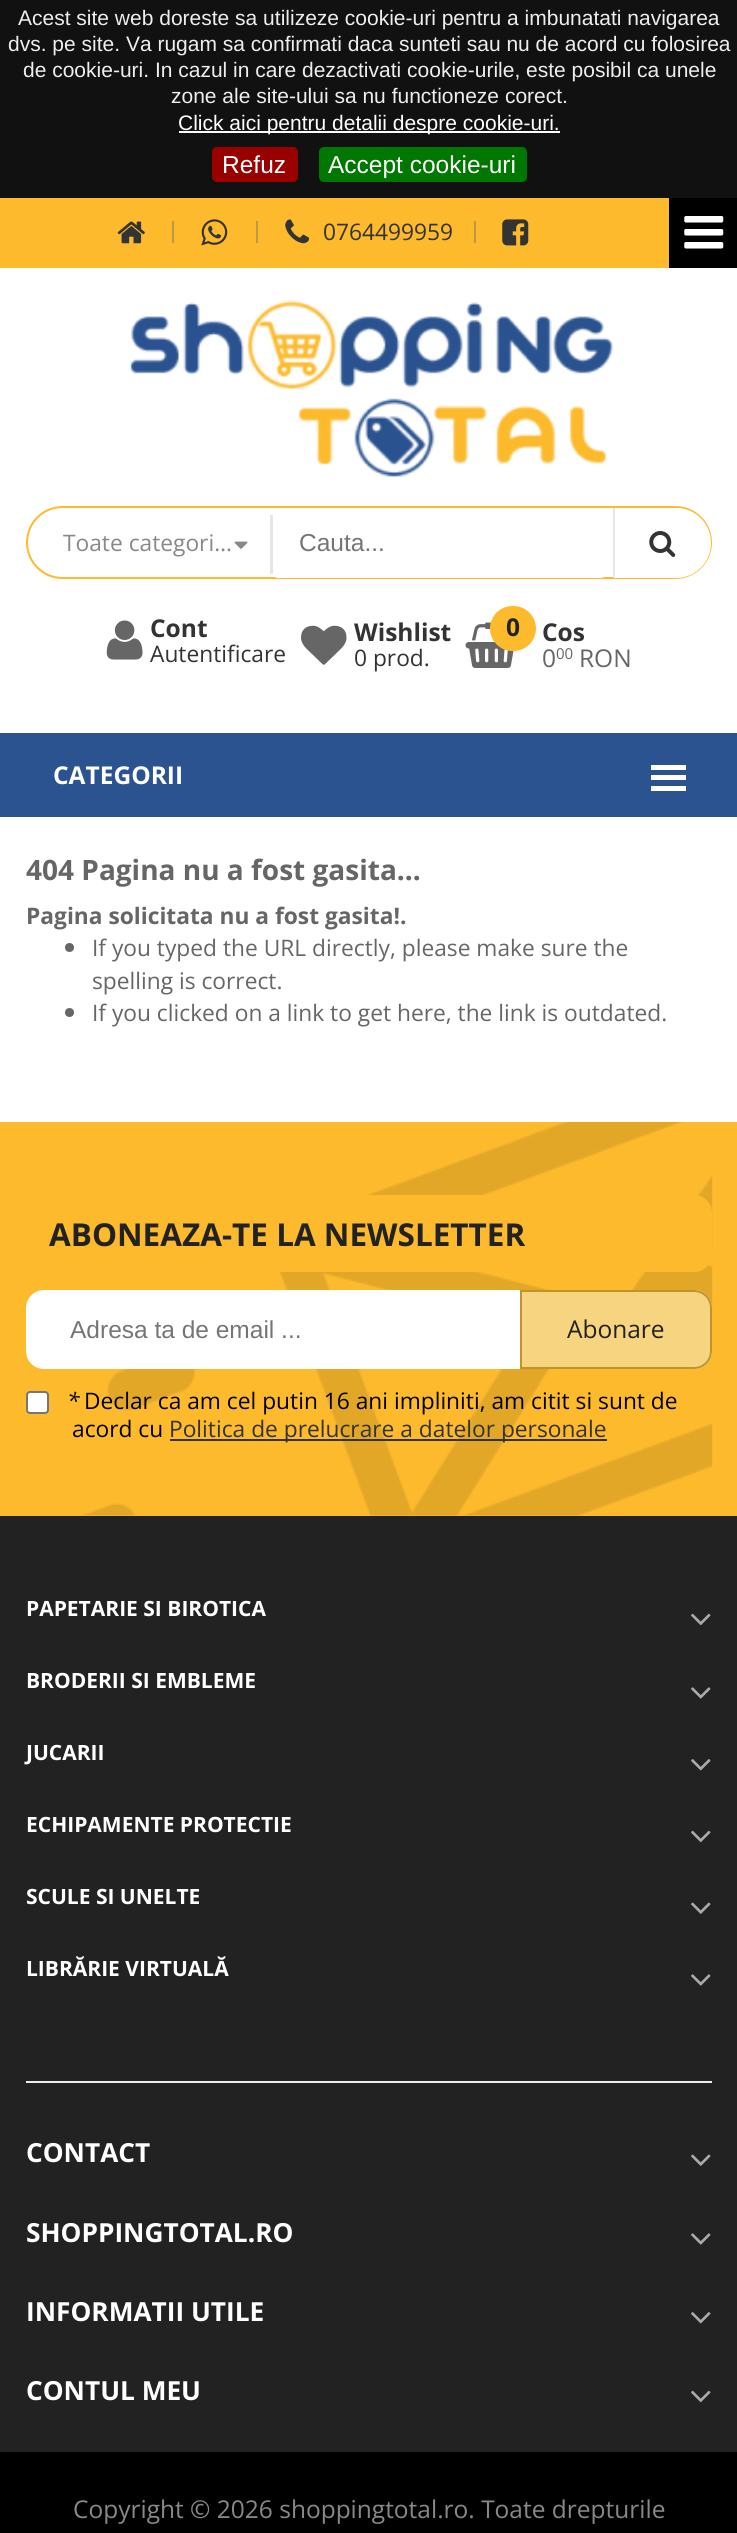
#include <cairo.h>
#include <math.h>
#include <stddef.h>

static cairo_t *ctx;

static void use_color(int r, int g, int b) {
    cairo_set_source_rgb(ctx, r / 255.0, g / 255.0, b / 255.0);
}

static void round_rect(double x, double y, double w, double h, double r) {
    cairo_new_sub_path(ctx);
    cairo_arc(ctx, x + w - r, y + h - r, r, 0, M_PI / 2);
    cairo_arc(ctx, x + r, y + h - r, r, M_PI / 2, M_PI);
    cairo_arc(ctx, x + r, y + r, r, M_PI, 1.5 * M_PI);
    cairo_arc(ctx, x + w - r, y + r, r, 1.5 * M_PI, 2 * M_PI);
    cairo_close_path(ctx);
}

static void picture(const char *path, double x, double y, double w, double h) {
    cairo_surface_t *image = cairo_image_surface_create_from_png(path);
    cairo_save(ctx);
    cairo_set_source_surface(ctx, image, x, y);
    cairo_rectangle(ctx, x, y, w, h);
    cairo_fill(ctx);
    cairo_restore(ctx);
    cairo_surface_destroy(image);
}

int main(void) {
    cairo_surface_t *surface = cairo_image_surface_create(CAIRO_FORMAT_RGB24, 737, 2533);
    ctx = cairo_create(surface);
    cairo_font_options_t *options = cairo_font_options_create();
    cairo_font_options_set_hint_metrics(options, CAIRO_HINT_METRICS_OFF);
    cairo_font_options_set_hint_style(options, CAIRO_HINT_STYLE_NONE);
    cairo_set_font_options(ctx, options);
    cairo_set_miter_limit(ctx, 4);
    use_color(255, 255, 255);
    cairo_paint(ctx);
    use_color(17, 17, 17);
    cairo_rectangle(ctx, 0, 0, 737, 198);
    cairo_fill(ctx);
    cairo_select_font_face(ctx, "Liberation Sans", CAIRO_FONT_SLANT_NORMAL, CAIRO_FONT_WEIGHT_NORMAL);
    cairo_set_font_size(ctx, 21);
    use_color(238, 238, 238);
    cairo_move_to(ctx, 18, 25);
    cairo_show_text(ctx, "Acest site web doreste sa utilizeze cookie-uri pentru a imbunatati navigarea");
    cairo_move_to(ctx, 8, 51);
    cairo_show_text(ctx, "dvs. pe site. Va rugam sa confirmati daca sunteti sau nu de acord cu folosirea");
    cairo_move_to(ctx, 23, 77);
    cairo_show_text(ctx, "de cookie-uri. In cazul in care dezactivati cookie-urile, este posibil ca unele");
    cairo_move_to(ctx, 171, 103);
    cairo_show_text(ctx, "zone ale site-ului sa nu functioneze corect.");
    use_color(255, 255, 255);
    cairo_rectangle(ctx, 179, 131, 381, 2);
    cairo_fill(ctx);
    cairo_move_to(ctx, 178, 130);
    cairo_show_text(ctx, "Click aici pentru detalii despre cookie-uri.");
    use_color(153, 0, 0);
    round_rect(212, 147, 86, 35, 5);
    cairo_fill(ctx);
    cairo_set_font_size(ctx, 24.5);
    use_color(255, 255, 255);
    cairo_move_to(ctx, 222, 173);
    cairo_show_text(ctx, "Refuz");
    use_color(0, 119, 0);
    round_rect(319, 147, 208, 35, 5);
    cairo_fill(ctx);
    use_color(255, 255, 255);
    cairo_move_to(ctx, 328, 173);
    cairo_show_text(ctx, "Accept cookie-uri");
    use_color(253, 186, 45);
    cairo_rectangle(ctx, 0, 198, 669, 70);
    cairo_fill(ctx);
    picture("img1.png", 117, 221, 28, 23);
    use_color(189, 153, 66);
    cairo_rectangle(ctx, 172, 221, 2, 22);
    cairo_fill(ctx);
    picture("img2.png", 201, 219, 27, 27);
    cairo_rectangle(ctx, 256, 221, 2, 22);
    cairo_fill(ctx);
    picture("img3.png", 285, 219, 25, 25);
    cairo_select_font_face(ctx, "Open Sans", CAIRO_FONT_SLANT_NORMAL, CAIRO_FONT_WEIGHT_NORMAL);
    cairo_set_font_size(ctx, 22.75);
    use_color(51, 51, 51);
    cairo_move_to(ctx, 323, 240);
    cairo_show_text(ctx, "0764499959");
    use_color(189, 153, 66);
    cairo_rectangle(ctx, 474, 221, 2, 22);
    cairo_fill(ctx);
    picture("img4.png", 502, 219, 27, 27);
    use_color(0, 0, 0);
    cairo_rectangle(ctx, 669, 198, 68, 70);
    cairo_fill(ctx);
    picture("img5.png", 684, 216, 40, 33);
    picture("img6.png", 129, 300, 484, 178);
    round_rect(27, 507, 684, 71, 35.5);
    use_color(253, 186, 45);
    cairo_stroke(ctx);
    use_color(230, 230, 230);
    cairo_rectangle(ctx, 270, 515, 3, 59);
    cairo_fill(ctx);
    use_color(136, 136, 136);
    cairo_move_to(ctx, 63, 551);
    cairo_show_text(ctx, "Toate categori…");
    picture("img7.png", 234, 541, 14, 8);
    use_color(255, 255, 255);
    round_rect(273, 508, 333, 70, 5);
    cairo_fill(ctx);
    cairo_select_font_face(ctx, "Liberation Sans", CAIRO_FONT_SLANT_NORMAL, CAIRO_FONT_WEIGHT_NORMAL);
    cairo_set_font_size(ctx, 24.5);
    use_color(117, 117, 117);
    cairo_move_to(ctx, 299, 551);
    cairo_show_text(ctx, "Cauta...");
    use_color(255, 255, 255);
    cairo_new_path(ctx);
    cairo_move_to(ctx, 614, 508);
    cairo_line_to(ctx, 676, 508);
    cairo_curve_to(ctx, 695.5, 508, 711, 523.5, 711, 543);
    cairo_curve_to(ctx, 711, 562.5, 695.5, 578, 676, 578);
    cairo_line_to(ctx, 614, 578);
    cairo_close_path(ctx);
    cairo_fill(ctx);
    use_color(230, 230, 230);
    cairo_rectangle(ctx, 613, 508, 2, 70);
    cairo_fill(ctx);
    picture("img8.png", 649, 531, 27, 26);
    picture("img9.png", 106, 620, 37, 40);
    cairo_select_font_face(ctx, "Open Sans", CAIRO_FONT_SLANT_NORMAL, CAIRO_FONT_WEIGHT_BOLD);
    use_color(51, 51, 51);
    cairo_move_to(ctx, 150, 637);
    cairo_show_text(ctx, "Cont");
    cairo_select_font_face(ctx, "Open Sans", CAIRO_FONT_SLANT_NORMAL, CAIRO_FONT_WEIGHT_NORMAL);
    cairo_set_font_size(ctx, 22.75);
    cairo_move_to(ctx, 150, 662);
    cairo_show_text(ctx, "Autentificare");
    picture("img10.png", 301, 625, 46, 40);
    cairo_select_font_face(ctx, "Open Sans", CAIRO_FONT_SLANT_NORMAL, CAIRO_FONT_WEIGHT_BOLD);
    cairo_set_font_size(ctx, 24.5);
    cairo_move_to(ctx, 354, 641);
    cairo_show_text(ctx, "Wishlist");
    cairo_select_font_face(ctx, "Open Sans", CAIRO_FONT_SLANT_NORMAL, CAIRO_FONT_WEIGHT_NORMAL);
    cairo_set_font_size(ctx, 22.75);
    cairo_move_to(ctx, 354, 666);
    cairo_show_text(ctx, "0 prod.");
    picture("img11.png", 465, 622, 49, 46);
    use_color(253, 186, 45);
    round_rect(490, 606, 46, 45, 22.5);
    cairo_fill(ctx);
    cairo_select_font_face(ctx, "Open Sans", CAIRO_FONT_SLANT_NORMAL, CAIRO_FONT_WEIGHT_BOLD);
    cairo_set_font_size(ctx, 24.5);
    use_color(34, 34, 34);
    cairo_move_to(ctx, 506, 636);
    cairo_show_text(ctx, "0");
    use_color(51, 51, 51);
    cairo_move_to(ctx, 542, 641);
    cairo_show_text(ctx, "Cos");
    cairo_select_font_face(ctx, "Open Sans", CAIRO_FONT_SLANT_NORMAL, CAIRO_FONT_WEIGHT_NORMAL);
    use_color(102, 102, 102);
    cairo_move_to(ctx, 542, 667);
    cairo_show_text(ctx, "0");
    cairo_set_font_size(ctx, 15);
    cairo_move_to(ctx, 556, 659);
    cairo_show_text(ctx, "00");
    cairo_set_font_size(ctx, 24.5);
    cairo_move_to(ctx, 579, 667);
    cairo_show_text(ctx, "RON");
    use_color(42, 83, 144);
    cairo_rectangle(ctx, 0, 733, 737, 84);
    cairo_fill(ctx);
    cairo_select_font_face(ctx, "Open Sans", CAIRO_FONT_SLANT_NORMAL, CAIRO_FONT_WEIGHT_BOLD);
    use_color(255, 255, 255);
    cairo_move_to(ctx, 53, 784);
    cairo_show_text(ctx, "CATEGORII");
    cairo_rectangle(ctx, 651, 765, 35, 5);
    cairo_fill(ctx);
    cairo_rectangle(ctx, 651, 775, 35, 5);
    cairo_fill(ctx);
    cairo_rectangle(ctx, 651, 786, 35, 5);
    cairo_fill(ctx);
    cairo_set_font_size(ctx, 28);
    use_color(102, 102, 102);
    cairo_move_to(ctx, 26, 880);
    cairo_show_text(ctx, "404 Pagina nu a fost gasita...");
    cairo_set_font_size(ctx, 22.75);
    cairo_move_to(ctx, 26, 924);
    cairo_show_text(ctx, "Pagina solicitata nu a fost gasita!.");
    cairo_new_path(ctx);
    cairo_arc(ctx, 69.5, 947.5, 4.5, 0, 2 * M_PI);
    cairo_fill(ctx);
    cairo_select_font_face(ctx, "Open Sans", CAIRO_FONT_SLANT_NORMAL, CAIRO_FONT_WEIGHT_NORMAL);
    cairo_move_to(ctx, 92, 956);
    cairo_show_text(ctx, "If you typed the URL directly, please make sure the");
    cairo_move_to(ctx, 92, 989);
    cairo_show_text(ctx, "spelling is correct.");
    cairo_new_path(ctx);
    cairo_arc(ctx, 69.5, 1012.5, 4.5, 0, 2 * M_PI);
    cairo_fill(ctx);
    cairo_move_to(ctx, 92, 1021);
    cairo_show_text(ctx, "If you clicked on a link to get here, the link is outdated.");
    use_color(253, 186, 45);
    cairo_rectangle(ctx, 0, 1122, 737, 394);
    cairo_fill(ctx);
    picture("img12.png", 81, 1121, 632, 395);
    round_rect(26, 1195, 686, 77, 18);
    cairo_fill(ctx);
    cairo_select_font_face(ctx, "Open Sans", CAIRO_FONT_SLANT_NORMAL, CAIRO_FONT_WEIGHT_BOLD);
    cairo_set_font_size(ctx, 31.5);
    use_color(34, 34, 34);
    cairo_move_to(ctx, 49, 1246);
    cairo_show_text(ctx, "ABONEAZA-TE LA NEWSLETTER");
    use_color(255, 255, 255);
    round_rect(27, 1291, 684, 77, 17);
    cairo_fill_preserve(ctx);
    cairo_stroke(ctx);
    cairo_select_font_face(ctx, "Liberation Sans", CAIRO_FONT_SLANT_NORMAL, CAIRO_FONT_WEIGHT_NORMAL);
    cairo_set_font_size(ctx, 24.5);
    use_color(117, 117, 117);
    cairo_move_to(ctx, 70, 1338);
    cairo_show_text(ctx, "Adresa ta de email ...");
    use_color(247, 212, 127);
    cairo_new_path(ctx);
    cairo_move_to(ctx, 521, 1291);
    cairo_line_to(ctx, 694, 1291);
    cairo_curve_to(ctx, 703.5, 1291, 711, 1298.5, 711, 1308);
    cairo_line_to(ctx, 711, 1351);
    cairo_curve_to(ctx, 711, 1360.5, 703.5, 1368, 694, 1368);
    cairo_line_to(ctx, 521, 1368);
    cairo_close_path(ctx);
    cairo_fill_preserve(ctx);
    use_color(190, 149, 44);
    cairo_stroke(ctx);
    cairo_select_font_face(ctx, "Open Sans", CAIRO_FONT_SLANT_NORMAL, CAIRO_FONT_WEIGHT_NORMAL);
    use_color(34, 34, 34);
    cairo_move_to(ctx, 567, 1338);
    cairo_show_text(ctx, "Abonare");
    use_color(255, 255, 255);
    round_rect(27, 1392, 21, 21, 3);
    cairo_fill_preserve(ctx);
    use_color(118, 118, 118);
    cairo_stroke(ctx);
    cairo_select_font_face(ctx, "Open Sans", CAIRO_FONT_SLANT_ITALIC, CAIRO_FONT_WEIGHT_NORMAL);
    cairo_set_font_size(ctx, 22.75);
    use_color(0, 0, 0);
    cairo_move_to(ctx, 67, 1409);
    cairo_show_text(ctx, "*");
    cairo_select_font_face(ctx, "Open Sans", CAIRO_FONT_SLANT_NORMAL, CAIRO_FONT_WEIGHT_NORMAL);
    cairo_move_to(ctx, 84, 1409);
    cairo_show_text(ctx, "Declar ca am cel putin 16 ani impliniti, am citit si sunt de");
    cairo_move_to(ctx, 72, 1437);
    cairo_show_text(ctx, "acord cu");
    use_color(51, 51, 51);
    cairo_rectangle(ctx, 170, 1439, 437, 2);
    cairo_fill(ctx);
    cairo_move_to(ctx, 169, 1437);
    cairo_show_text(ctx, "Politica de prelucrare a datelor personale");
    use_color(34, 34, 34);
    cairo_rectangle(ctx, 0, 1516, 737, 936);
    cairo_fill(ctx);
    cairo_select_font_face(ctx, "Open Sans", CAIRO_FONT_SLANT_NORMAL, CAIRO_FONT_WEIGHT_BOLD);
    cairo_set_font_size(ctx, 21);
    use_color(255, 255, 255);
    cairo_move_to(ctx, 26, 1616);
    cairo_show_text(ctx, "PAPETARIE SI BIROTICA");
    picture("img13.png", 691, 1613, 20, 13);
    cairo_move_to(ctx, 26, 1688);
    cairo_show_text(ctx, "BRODERII SI EMBLEME");
    picture("img14.png", 691, 1687, 20, 12);
    cairo_move_to(ctx, 26, 1760);
    cairo_show_text(ctx, "JUCARII");
    picture("img15.png", 691, 1759, 20, 12);
    cairo_move_to(ctx, 26, 1832);
    cairo_show_text(ctx, "ECHIPAMENTE PROTECTIE");
    picture("img13.png", 691, 1830, 20, 13);
    cairo_move_to(ctx, 26, 1904);
    cairo_show_text(ctx, "SCULE SI UNELTE");
    picture("img16.png", 691, 1902, 20, 12);
    cairo_move_to(ctx, 26, 1976);
    cairo_show_text(ctx, "LIBRĂRIE VIRTUALĂ");
    picture("img14.png", 691, 1974, 20, 12);
    use_color(238, 238, 238);
    cairo_rectangle(ctx, 26, 2081, 686, 2);
    cairo_fill(ctx);
    cairo_set_font_size(ctx, 26.25);
    use_color(255, 255, 255);
    cairo_move_to(ctx, 26, 2162);
    cairo_show_text(ctx, "CONTACT");
    picture("img16.png", 691, 2154, 20, 12);
    cairo_move_to(ctx, 26, 2242);
    cairo_show_text(ctx, "SHOPPINGTOTAL.RO");
    picture("img14.png", 691, 2233, 20, 12);
    cairo_move_to(ctx, 26, 2321);
    cairo_show_text(ctx, "INFORMATII UTILE");
    picture("img15.png", 691, 2312, 20, 12);
    cairo_move_to(ctx, 26, 2400);
    cairo_show_text(ctx, "CONTUL MEU");
    picture("img13.png", 691, 2390, 20, 13);
    use_color(0, 0, 0);
    cairo_rectangle(ctx, 0, 2452, 737, 81);
    cairo_fill(ctx);
    cairo_select_font_face(ctx, "Open Sans", CAIRO_FONT_SLANT_NORMAL, CAIRO_FONT_WEIGHT_NORMAL);
    cairo_set_font_size(ctx, 24.5);
    use_color(136, 136, 136);
    cairo_move_to(ctx, 73, 2518);
    cairo_show_text(ctx, "Copyright © 2026 shoppingtotal.ro. Toate drepturile");
    cairo_surface_write_to_png(surface, "result.png");
    cairo_font_options_destroy(options);
    cairo_destroy(ctx);
    cairo_surface_destroy(surface);
    return 0;
}
